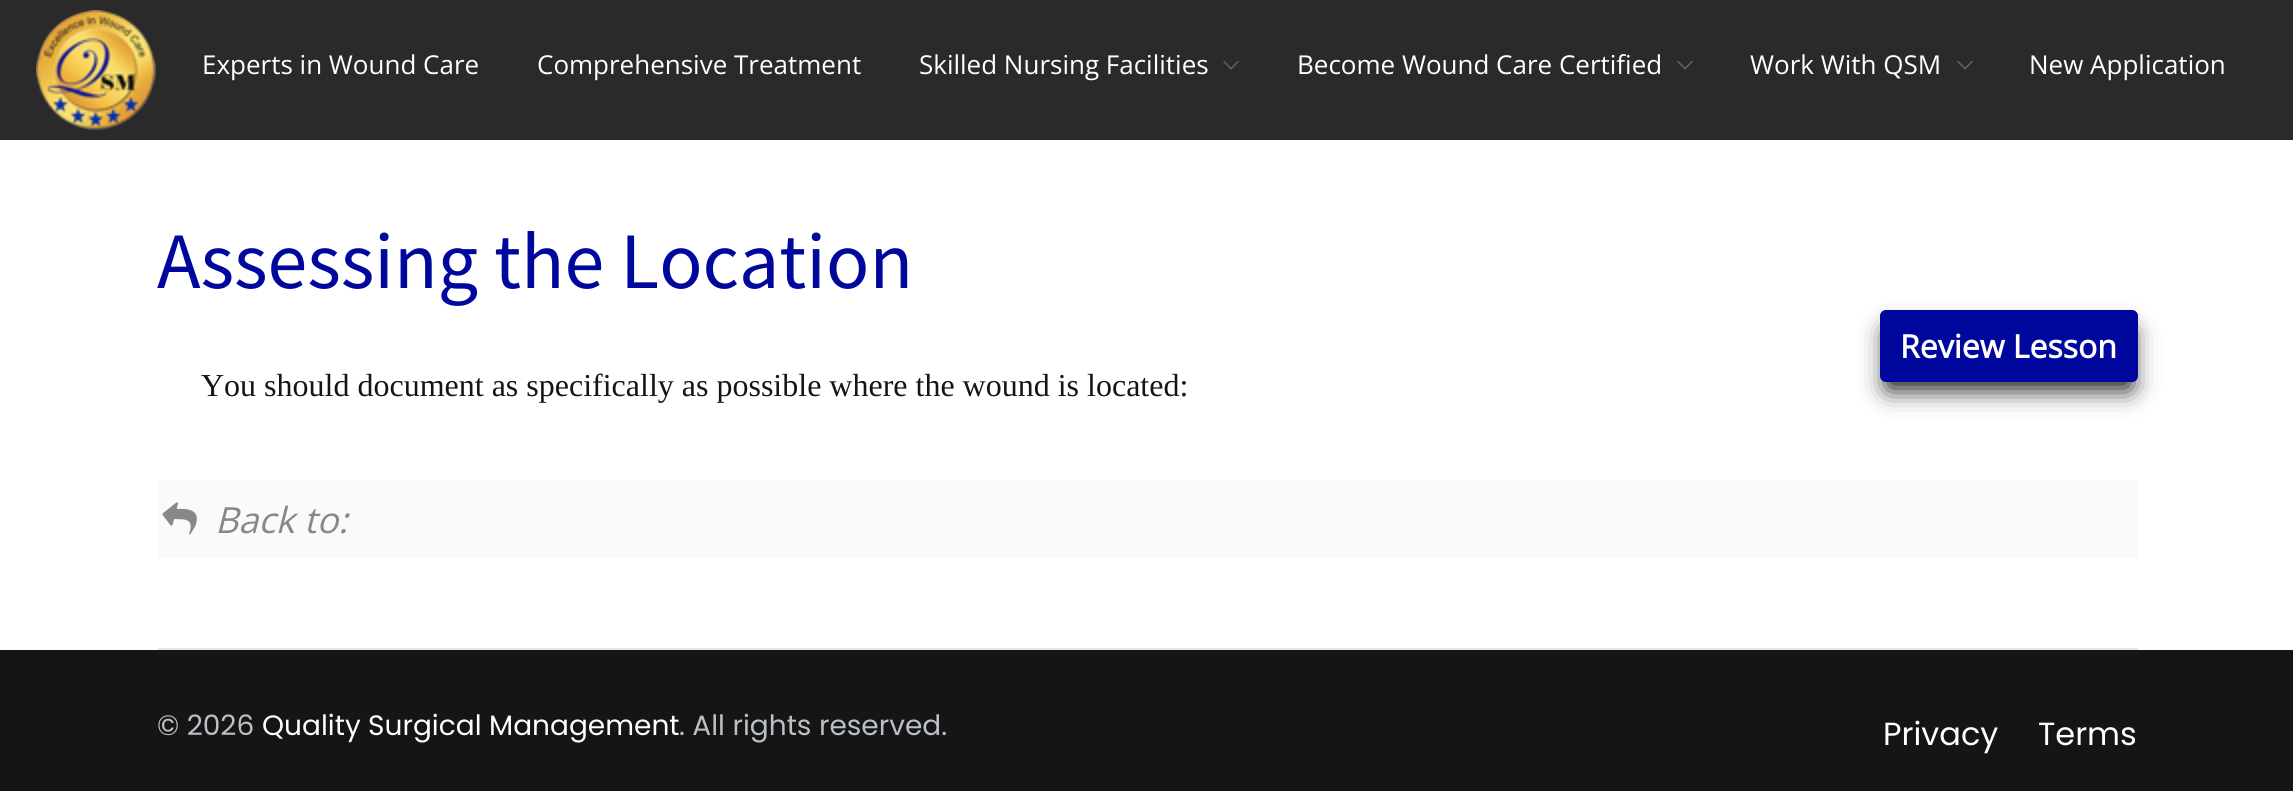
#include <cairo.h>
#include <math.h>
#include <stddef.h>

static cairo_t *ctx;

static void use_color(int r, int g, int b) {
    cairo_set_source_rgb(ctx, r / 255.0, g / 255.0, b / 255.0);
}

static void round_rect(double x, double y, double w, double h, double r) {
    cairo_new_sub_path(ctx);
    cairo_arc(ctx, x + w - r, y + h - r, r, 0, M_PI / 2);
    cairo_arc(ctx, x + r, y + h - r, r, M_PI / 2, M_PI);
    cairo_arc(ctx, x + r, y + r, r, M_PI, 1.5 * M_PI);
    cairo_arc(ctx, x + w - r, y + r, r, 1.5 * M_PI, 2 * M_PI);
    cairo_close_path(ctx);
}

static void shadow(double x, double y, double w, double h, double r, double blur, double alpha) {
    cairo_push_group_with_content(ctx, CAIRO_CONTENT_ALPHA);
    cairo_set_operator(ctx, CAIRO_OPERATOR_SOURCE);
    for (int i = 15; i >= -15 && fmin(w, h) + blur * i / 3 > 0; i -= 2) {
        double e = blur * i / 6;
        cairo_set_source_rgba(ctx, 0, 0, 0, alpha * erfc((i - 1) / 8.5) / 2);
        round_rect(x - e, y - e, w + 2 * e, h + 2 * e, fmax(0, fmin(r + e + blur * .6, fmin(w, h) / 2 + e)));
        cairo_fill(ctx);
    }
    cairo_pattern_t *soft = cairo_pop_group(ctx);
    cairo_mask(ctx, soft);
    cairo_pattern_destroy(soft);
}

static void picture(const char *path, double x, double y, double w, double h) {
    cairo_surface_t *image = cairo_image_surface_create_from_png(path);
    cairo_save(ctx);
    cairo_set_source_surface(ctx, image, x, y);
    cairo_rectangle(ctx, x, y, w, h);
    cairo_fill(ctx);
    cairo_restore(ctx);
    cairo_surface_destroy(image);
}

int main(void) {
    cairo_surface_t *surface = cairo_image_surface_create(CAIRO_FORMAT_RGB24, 2293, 791);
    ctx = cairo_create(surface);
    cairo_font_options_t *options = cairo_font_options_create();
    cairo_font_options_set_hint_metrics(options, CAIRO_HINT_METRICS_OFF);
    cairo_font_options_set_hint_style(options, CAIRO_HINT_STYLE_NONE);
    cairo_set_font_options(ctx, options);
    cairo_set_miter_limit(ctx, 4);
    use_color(255, 255, 255);
    cairo_paint(ctx);
    use_color(42, 42, 42);
    cairo_rectangle(ctx, 0, 0, 2293, 140);
    cairo_fill(ctx);
    picture("img1.png", 36, 10, 120, 120);
    cairo_select_font_face(ctx, "Open Sans", CAIRO_FONT_SLANT_NORMAL, CAIRO_FONT_WEIGHT_NORMAL);
    cairo_set_font_size(ctx, 26);
    use_color(255, 255, 255);
    cairo_move_to(ctx, 202, 74);
    cairo_show_text(ctx, "Experts in Wound Care");
    cairo_move_to(ctx, 537, 74);
    cairo_show_text(ctx, "Comprehensive Treatment");
    cairo_move_to(ctx, 919, 74);
    cairo_show_text(ctx, "Skilled Nursing Facilities");
    picture("img2.png", 1223, 61, 16, 9);
    cairo_move_to(ctx, 1297, 74);
    cairo_show_text(ctx, "Become Wound Care Certified");
    picture("img2.png", 1677, 61, 16, 9);
    cairo_move_to(ctx, 1750, 74);
    cairo_show_text(ctx, "Work With QSM");
    picture("img2.png", 1957, 61, 16, 9);
    cairo_move_to(ctx, 2029, 74);
    cairo_show_text(ctx, "New Application");
    use_color(229, 229, 229);
    cairo_rectangle(ctx, 158, 648, 1980, 2);
    cairo_fill(ctx);
    cairo_select_font_face(ctx, "Source Sans Pro", CAIRO_FONT_SLANT_NORMAL, CAIRO_FONT_WEIGHT_NORMAL);
    cairo_set_font_size(ctx, 80);
    use_color(0, 7, 156);
    cairo_move_to(ctx, 157, 288);
    cairo_show_text(ctx, "Assessing the Location");
    use_color(0, 0, 0);
    shadow(1888, 332, 242, 56, 0, 13, 1);
    use_color(0, 7, 156);
    round_rect(1880, 310, 258, 72, 6);
    cairo_fill(ctx);
    cairo_select_font_face(ctx, "Open Sans", CAIRO_FONT_SLANT_NORMAL, CAIRO_FONT_WEIGHT_BOLD);
    cairo_set_font_size(ctx, 32);
    use_color(255, 255, 255);
    cairo_move_to(ctx, 1900, 358);
    cairo_show_text(ctx, "Review Lesson");
    cairo_select_font_face(ctx, "Liberation Serif", CAIRO_FONT_SLANT_NORMAL, CAIRO_FONT_WEIGHT_NORMAL);
    use_color(21, 21, 21);
    cairo_move_to(ctx, 201, 396);
    cairo_show_text(ctx, "You should document as specifically as possible where the wound is located:");
    use_color(250, 250, 250);
    cairo_rectangle(ctx, 158, 480, 1980, 78);
    cairo_fill(ctx);
    picture("img3.png", 162, 502, 35, 33);
    cairo_select_font_face(ctx, "Open Sans", CAIRO_FONT_SLANT_ITALIC, CAIRO_FONT_WEIGHT_NORMAL);
    cairo_set_font_size(ctx, 36);
    use_color(136, 136, 136);
    cairo_move_to(ctx, 215, 533);
    cairo_show_text(ctx, "Back to:");
    use_color(21, 21, 21);
    cairo_rectangle(ctx, 0, 650, 2293, 141);
    cairo_fill(ctx);
    cairo_select_font_face(ctx, "Poppins", CAIRO_FONT_SLANT_NORMAL, CAIRO_FONT_WEIGHT_NORMAL);
    cairo_set_font_size(ctx, 28);
    use_color(186, 192, 197);
    cairo_move_to(ctx, 157, 735);
    cairo_show_text(ctx, "© 2026");
    use_color(255, 255, 255);
    cairo_move_to(ctx, 262, 735);
    cairo_show_text(ctx, "Quality Surgical Management");
    use_color(186, 192, 197);
    cairo_move_to(ctx, 679, 735);
    cairo_show_text(ctx, ". All rights reserved.");
    cairo_set_font_size(ctx, 32);
    use_color(255, 255, 255);
    cairo_move_to(ctx, 1883, 745);
    cairo_show_text(ctx, "Privacy");
    cairo_move_to(ctx, 2038, 745);
    cairo_show_text(ctx, "Terms");
    cairo_surface_write_to_png(surface, "result.png");
    cairo_font_options_destroy(options);
    cairo_destroy(ctx);
    cairo_surface_destroy(surface);
    return 0;
}
